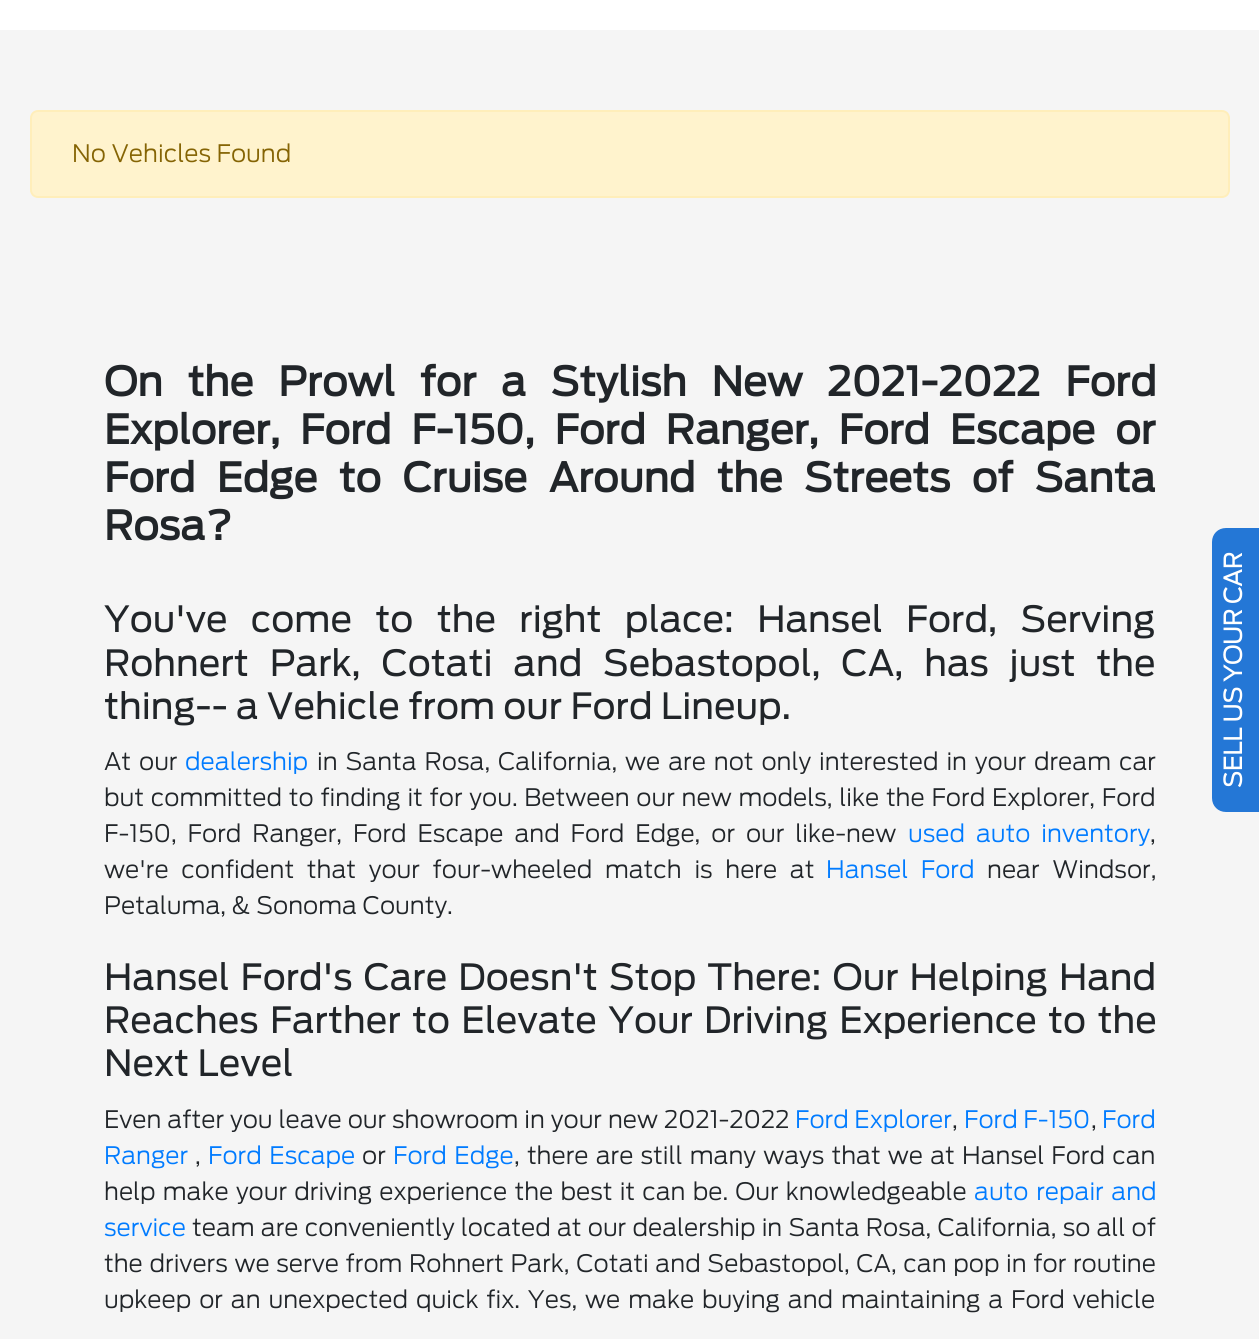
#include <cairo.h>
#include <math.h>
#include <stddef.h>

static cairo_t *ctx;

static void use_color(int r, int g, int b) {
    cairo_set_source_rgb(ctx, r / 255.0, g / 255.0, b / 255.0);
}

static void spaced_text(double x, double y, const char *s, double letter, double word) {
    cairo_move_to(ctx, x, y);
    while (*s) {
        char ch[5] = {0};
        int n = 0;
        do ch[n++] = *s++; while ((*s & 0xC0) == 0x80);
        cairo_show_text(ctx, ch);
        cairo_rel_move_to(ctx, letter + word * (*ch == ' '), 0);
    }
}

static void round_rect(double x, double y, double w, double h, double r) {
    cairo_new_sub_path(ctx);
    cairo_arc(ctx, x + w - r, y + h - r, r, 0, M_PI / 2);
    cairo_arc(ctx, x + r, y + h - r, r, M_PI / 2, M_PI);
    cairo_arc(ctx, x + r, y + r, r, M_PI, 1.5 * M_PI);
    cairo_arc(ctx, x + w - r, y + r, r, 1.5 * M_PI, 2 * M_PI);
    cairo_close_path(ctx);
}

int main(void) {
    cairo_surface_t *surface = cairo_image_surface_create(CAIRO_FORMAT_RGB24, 1259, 1339);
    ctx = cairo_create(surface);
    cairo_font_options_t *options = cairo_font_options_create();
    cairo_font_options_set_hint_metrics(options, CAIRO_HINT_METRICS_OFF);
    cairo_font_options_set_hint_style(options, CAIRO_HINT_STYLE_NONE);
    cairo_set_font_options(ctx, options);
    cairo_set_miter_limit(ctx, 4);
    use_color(245, 245, 245);
    cairo_paint(ctx);
    use_color(255, 255, 255);
    cairo_rectangle(ctx, 0, 0, 1259, 30);
    cairo_fill(ctx);
    use_color(255, 243, 205);
    round_rect(31, 111, 1198, 86, 7);
    cairo_fill_preserve(ctx);
    use_color(255, 238, 186);
    cairo_stroke(ctx);
    cairo_select_font_face(ctx, "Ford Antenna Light", CAIRO_FONT_SLANT_NORMAL, CAIRO_FONT_WEIGHT_NORMAL);
    cairo_set_font_size(ctx, 24);
    use_color(133, 100, 4);
    cairo_move_to(ctx, 72, 162);
    cairo_show_text(ctx, "No Vehicles Found");
    cairo_select_font_face(ctx, "Ford Antenna", CAIRO_FONT_SLANT_NORMAL, CAIRO_FONT_WEIGHT_BOLD);
    cairo_set_font_size(ctx, 40);
    use_color(33, 37, 41);
    spaced_text(104, 396, "On the Prowl for a Stylish New 2021-2022 Ford", 0, 15.5);
    spaced_text(104, 444, "Explorer, Ford F-150, Ford Ranger, Ford Escape or", 0, 10.75);
    spaced_text(104, 492, "Ford Edge to Cruise Around the Streets of Santa", 0, 12.25);
    cairo_move_to(ctx, 104, 540);
    cairo_show_text(ctx, "Rosa?");
    cairo_select_font_face(ctx, "Ford Antenna", CAIRO_FONT_SLANT_NORMAL, CAIRO_FONT_WEIGHT_NORMAL);
    cairo_set_font_size(ctx, 36);
    spaced_text(104, 632, "You've come to the right place: Hansel Ford, Serving", 0, 15);
    spaced_text(104, 676, "Rohnert Park, Cotati and Sebastopol, CA, has just the", 0, 12.5);
    cairo_move_to(ctx, 104, 719);
    cairo_show_text(ctx, "thing-- a Vehicle from our Ford Lineup.");
    cairo_select_font_face(ctx, "Ford Antenna Light", CAIRO_FONT_SLANT_NORMAL, CAIRO_FONT_WEIGHT_NORMAL);
    cairo_set_font_size(ctx, 24);
    spaced_text(104, 770, "At our", 0, 2.25);
    use_color(0, 123, 255);
    cairo_move_to(ctx, 185, 770);
    cairo_show_text(ctx, "dealership");
    use_color(33, 37, 41);
    spaced_text(317, 770, "in Santa Rosa, California, we are not only interested in your dream car", 0, 2.25);
    spaced_text(104, 806, "but committed to finding it for you. Between our new models, like the Ford Explorer, Ford", 0, 1.1);
    spaced_text(104, 842, "F-150, Ford Ranger, Ford Escape and Ford Edge, or our like-new", 0, 5.25);
    use_color(0, 123, 255);
    spaced_text(908, 842, "used auto inventory", 0, 5.25);
    use_color(33, 37, 41);
    cairo_move_to(ctx, 1150, 842);
    cairo_show_text(ctx, ",");
    spaced_text(104, 878, "we're confident that your four-wheeled match is here at", 0, 7);
    use_color(0, 123, 255);
    spaced_text(826, 878, "Hansel Ford", 0, 7);
    use_color(33, 37, 41);
    spaced_text(987, 878, "near Windsor,", 0, 7);
    cairo_move_to(ctx, 104, 914);
    cairo_show_text(ctx, "Petaluma, & Sonoma County.");
    cairo_select_font_face(ctx, "Ford Antenna", CAIRO_FONT_SLANT_NORMAL, CAIRO_FONT_WEIGHT_NORMAL);
    cairo_set_font_size(ctx, 36);
    spaced_text(104, 990, "Hansel Ford's Care Doesn't Stop There: Our Helping Hand", 0, 2.75);
    spaced_text(104, 1033, "Reaches Farther to Elevate Your Driving Experience to the", 0, 3);
    cairo_move_to(ctx, 104, 1076);
    cairo_show_text(ctx, "Next Level");
    cairo_select_font_face(ctx, "Ford Antenna Light", CAIRO_FONT_SLANT_NORMAL, CAIRO_FONT_WEIGHT_NORMAL);
    cairo_set_font_size(ctx, 24);
    spaced_text(104, 1128, "Even after you leave our showroom in your new 2021-2022", 0, 0.25);
    use_color(0, 123, 255);
    cairo_move_to(ctx, 795, 1128);
    cairo_show_text(ctx, "Ford Explorer");
    use_color(33, 37, 41);
    cairo_move_to(ctx, 952, 1128);
    cairo_show_text(ctx, ",");
    use_color(0, 123, 255);
    cairo_move_to(ctx, 964, 1128);
    cairo_show_text(ctx, "Ford F-150");
    use_color(33, 37, 41);
    cairo_move_to(ctx, 1091, 1128);
    cairo_show_text(ctx, ",");
    use_color(0, 123, 255);
    cairo_move_to(ctx, 1102, 1128);
    cairo_show_text(ctx, "Ford");
    cairo_move_to(ctx, 104, 1164);
    cairo_show_text(ctx, "Ranger");
    use_color(33, 37, 41);
    cairo_move_to(ctx, 195, 1164);
    cairo_show_text(ctx, ",");
    use_color(0, 123, 255);
    spaced_text(208, 1164, "Ford Escape", 0, 2);
    use_color(33, 37, 41);
    cairo_move_to(ctx, 362, 1164);
    cairo_show_text(ctx, "or");
    use_color(0, 123, 255);
    spaced_text(393, 1164, "Ford Edge", 0, 2);
    use_color(33, 37, 41);
    spaced_text(514, 1164, ", there are still many ways that we at Hansel Ford can", 0, 1.5);
    spaced_text(104, 1200, "help make your driving experience the best it can be. Our knowledgeable", 0, 1.5);
    use_color(0, 123, 255);
    spaced_text(974, 1200, "auto repair and", 0, 2);
    cairo_move_to(ctx, 104, 1236);
    cairo_show_text(ctx, "service");
    use_color(33, 37, 41);
    spaced_text(192, 1236, "team are conveniently located at our dealership in Santa Rosa, California, so all of", 0, 0.5);
    spaced_text(104, 1272, "the drivers we serve from Rohnert Park, Cotati and Sebastopol, CA, can pop in for routine", 0, 1);
    spaced_text(104, 1308, "upkeep or an unexpected quick fix. Yes, we make buying and maintaining a Ford vehicle", 0, 2.25);
    use_color(36, 119, 214);
    cairo_new_path(ctx);
    cairo_move_to(ctx, 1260, 812);
    cairo_line_to(ctx, 1226, 812);
    cairo_curve_to(ctx, 1218, 812, 1212, 806, 1212, 798);
    cairo_line_to(ctx, 1212, 542);
    cairo_curve_to(ctx, 1212, 534, 1218, 528, 1226, 528);
    cairo_line_to(ctx, 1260, 528);
    cairo_close_path(ctx);
    cairo_fill(ctx);
    cairo_select_font_face(ctx, "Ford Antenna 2", CAIRO_FONT_SLANT_NORMAL, CAIRO_FONT_WEIGHT_BOLD);
    use_color(255, 255, 255);
    cairo_save(ctx);
    cairo_translate(ctx, 1242, 788);
    cairo_rotate(ctx, -90 * M_PI / 180);
    spaced_text(0, 0, "SELL US YOUR CAR", 0, -0.5);
    cairo_restore(ctx);
    cairo_surface_write_to_png(surface, "result.png");
    cairo_font_options_destroy(options);
    cairo_destroy(ctx);
    cairo_surface_destroy(surface);
    return 0;
}
